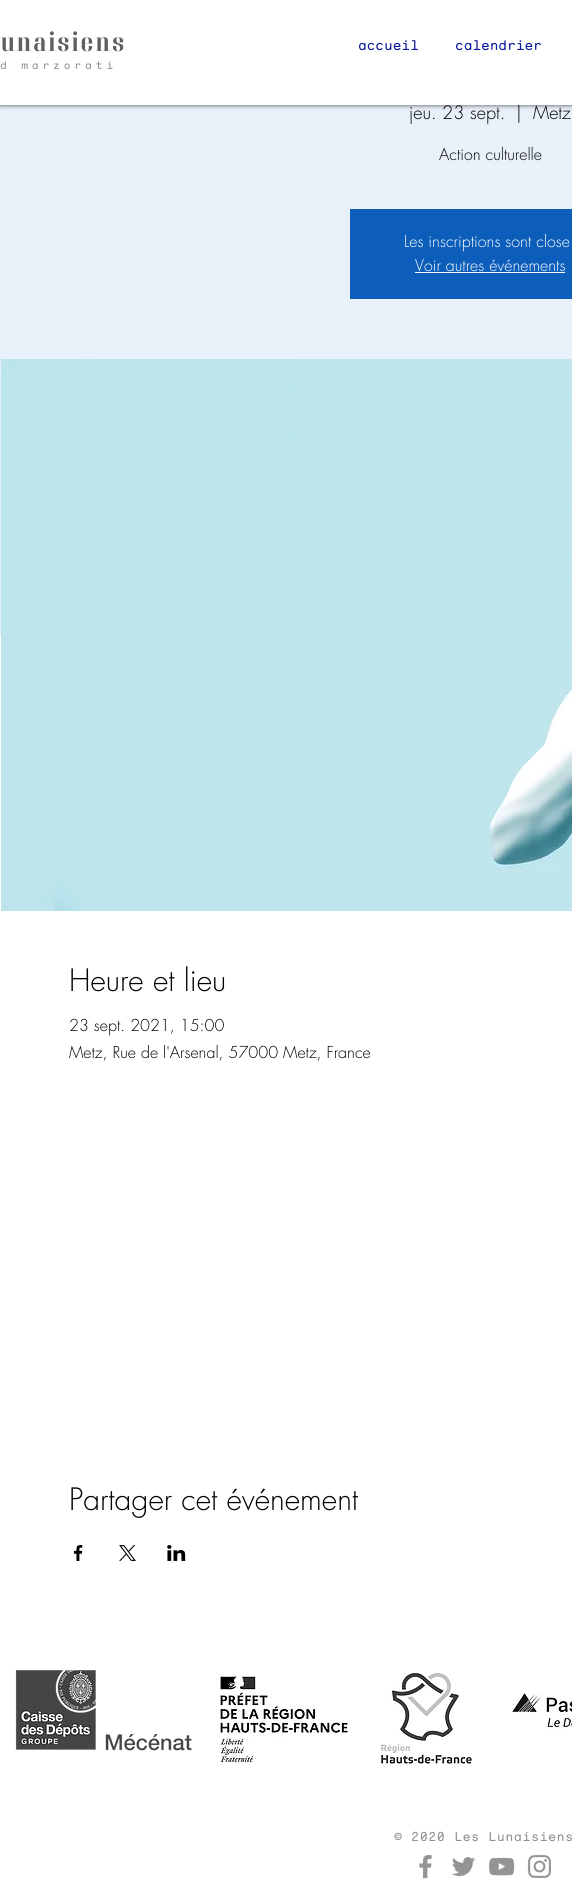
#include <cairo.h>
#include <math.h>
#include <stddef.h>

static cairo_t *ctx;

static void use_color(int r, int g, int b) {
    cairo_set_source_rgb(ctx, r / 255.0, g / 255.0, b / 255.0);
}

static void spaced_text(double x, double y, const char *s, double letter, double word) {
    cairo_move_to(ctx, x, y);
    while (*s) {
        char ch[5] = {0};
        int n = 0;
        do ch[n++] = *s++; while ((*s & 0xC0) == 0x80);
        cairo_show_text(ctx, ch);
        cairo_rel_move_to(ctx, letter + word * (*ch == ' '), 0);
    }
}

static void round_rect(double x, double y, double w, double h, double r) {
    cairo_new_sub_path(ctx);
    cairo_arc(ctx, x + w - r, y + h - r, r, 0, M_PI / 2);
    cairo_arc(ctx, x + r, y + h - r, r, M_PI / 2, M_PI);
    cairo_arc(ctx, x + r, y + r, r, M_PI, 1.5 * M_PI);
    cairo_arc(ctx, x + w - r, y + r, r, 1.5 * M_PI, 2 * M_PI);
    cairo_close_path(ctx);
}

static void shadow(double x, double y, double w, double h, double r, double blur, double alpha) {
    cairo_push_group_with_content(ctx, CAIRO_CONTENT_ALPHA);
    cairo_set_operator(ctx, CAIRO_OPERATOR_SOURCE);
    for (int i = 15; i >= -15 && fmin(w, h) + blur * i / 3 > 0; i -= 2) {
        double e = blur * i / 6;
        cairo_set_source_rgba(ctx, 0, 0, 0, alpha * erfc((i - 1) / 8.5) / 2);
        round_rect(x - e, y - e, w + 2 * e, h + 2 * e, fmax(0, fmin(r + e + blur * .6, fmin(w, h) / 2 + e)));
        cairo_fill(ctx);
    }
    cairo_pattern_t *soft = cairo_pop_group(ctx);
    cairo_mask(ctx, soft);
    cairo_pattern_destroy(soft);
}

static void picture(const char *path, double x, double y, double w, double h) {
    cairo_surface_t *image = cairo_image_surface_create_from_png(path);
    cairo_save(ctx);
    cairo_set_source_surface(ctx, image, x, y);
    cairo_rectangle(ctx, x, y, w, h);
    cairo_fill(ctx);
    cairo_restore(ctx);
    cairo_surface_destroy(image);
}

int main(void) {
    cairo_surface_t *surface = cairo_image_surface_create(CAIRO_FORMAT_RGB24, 572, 1884);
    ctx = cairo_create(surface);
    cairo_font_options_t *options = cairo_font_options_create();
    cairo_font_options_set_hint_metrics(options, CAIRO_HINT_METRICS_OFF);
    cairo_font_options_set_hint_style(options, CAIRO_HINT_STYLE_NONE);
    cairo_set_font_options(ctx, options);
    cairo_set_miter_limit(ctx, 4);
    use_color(255, 255, 255);
    cairo_paint(ctx);
    use_color(232, 240, 249);
    cairo_rectangle(ctx, 0, 105, 572, 530);
    cairo_fill(ctx);
    use_color(0, 0, 0);
    shadow(0, 0, 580, 105, 0, 2.5, 0.7);
    cairo_select_font_face(ctx, "futura Light", CAIRO_FONT_SLANT_NORMAL, CAIRO_FONT_WEIGHT_NORMAL);
    cairo_set_font_size(ctx, 18);
    use_color(0, 0, 0);
    cairo_move_to(ctx, 516, 119);
    cairo_show_text(ctx, "|");
    use_color(255, 255, 255);
    cairo_rectangle(ctx, 0, 0, 572, 105);
    cairo_fill(ctx);
    cairo_select_font_face(ctx, "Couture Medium", CAIRO_FONT_SLANT_NORMAL, CAIRO_FONT_WEIGHT_NORMAL);
    cairo_set_font_size(ctx, 27);
    use_color(96, 96, 96);
    spaced_text(1, 51, "unaisiens", 1.6, 0);
    cairo_select_font_face(ctx, "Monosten", CAIRO_FONT_SLANT_NORMAL, CAIRO_FONT_WEIGHT_NORMAL);
    cairo_set_font_size(ctx, 14);
    use_color(11, 26, 155);
    cairo_move_to(ctx, 358, 50);
    cairo_show_text(ctx, "accueil");
    cairo_move_to(ctx, 455, 50);
    cairo_show_text(ctx, "calendrier");
    cairo_set_font_size(ctx, 11);
    use_color(144, 144, 144);
    spaced_text(0, 69, "d marzorati", 3.8, 0);
    cairo_select_font_face(ctx, "futura Light", CAIRO_FONT_SLANT_NORMAL, CAIRO_FONT_WEIGHT_NORMAL);
    cairo_set_font_size(ctx, 18);
    use_color(0, 0, 0);
    cairo_move_to(ctx, 409, 119);
    cairo_show_text(ctx, "jeu. 23 sept.");
    cairo_move_to(ctx, 533, 119);
    cairo_show_text(ctx, "Metz");
    cairo_set_font_size(ctx, 16);
    cairo_move_to(ctx, 439, 160);
    cairo_show_text(ctx, "Action culturelle");
    use_color(13, 94, 186);
    cairo_rectangle(ctx, 350, 209, 222, 90);
    cairo_fill(ctx);
    use_color(255, 255, 255);
    cairo_move_to(ctx, 404, 247);
    cairo_show_text(ctx, "Les inscriptions sont close");
    cairo_move_to(ctx, 415, 271);
    cairo_show_text(ctx, "Voir autres événements");
    cairo_rectangle(ctx, 415, 272, 150, 1);
    cairo_fill(ctx);
    picture("img1.png", 1, 359, 571, 552);
    cairo_set_font_size(ctx, 30);
    use_color(0, 0, 0);
    cairo_move_to(ctx, 69, 991);
    cairo_show_text(ctx, "Heure et lieu");
    cairo_set_font_size(ctx, 16);
    cairo_move_to(ctx, 69, 1031);
    cairo_show_text(ctx, "23 sept. 2021, 15:00");
    cairo_move_to(ctx, 69, 1058);
    cairo_show_text(ctx, "Metz, Rue de l'Arsenal, 57000 Metz, France");
    cairo_set_font_size(ctx, 30);
    cairo_move_to(ctx, 69, 1510);
    cairo_show_text(ctx, "Partager cet événement");
    picture("img2.png", 74, 1545, 9, 16);
    picture("img3.png", 119, 1545, 17, 16);
    picture("img4.png", 167, 1545, 19, 16);
    picture("img5.png", 15, 1670, 177, 81);
    picture("img6.png", 220, 1674, 128, 88);
    picture("img7.png", 381, 1673, 91, 91);
    picture("img8.png", 512, 1693, 60, 36);
    cairo_select_font_face(ctx, "Monosten", CAIRO_FONT_SLANT_NORMAL, CAIRO_FONT_WEIGHT_NORMAL);
    cairo_set_font_size(ctx, 13);
    use_color(144, 144, 144);
    spaced_text(394, 1841, "© 2020 Les Lunaisiens", 0.5, 0);
    picture("img9.png", 419, 1854, 13, 25);
    picture("img10.png", 452, 1857, 24, 20);
    picture("img11.png", 489, 1857, 26, 19);
    picture("img12.png", 527, 1854, 24, 24);
    cairo_surface_write_to_png(surface, "result.png");
    cairo_font_options_destroy(options);
    cairo_destroy(ctx);
    cairo_surface_destroy(surface);
    return 0;
}
